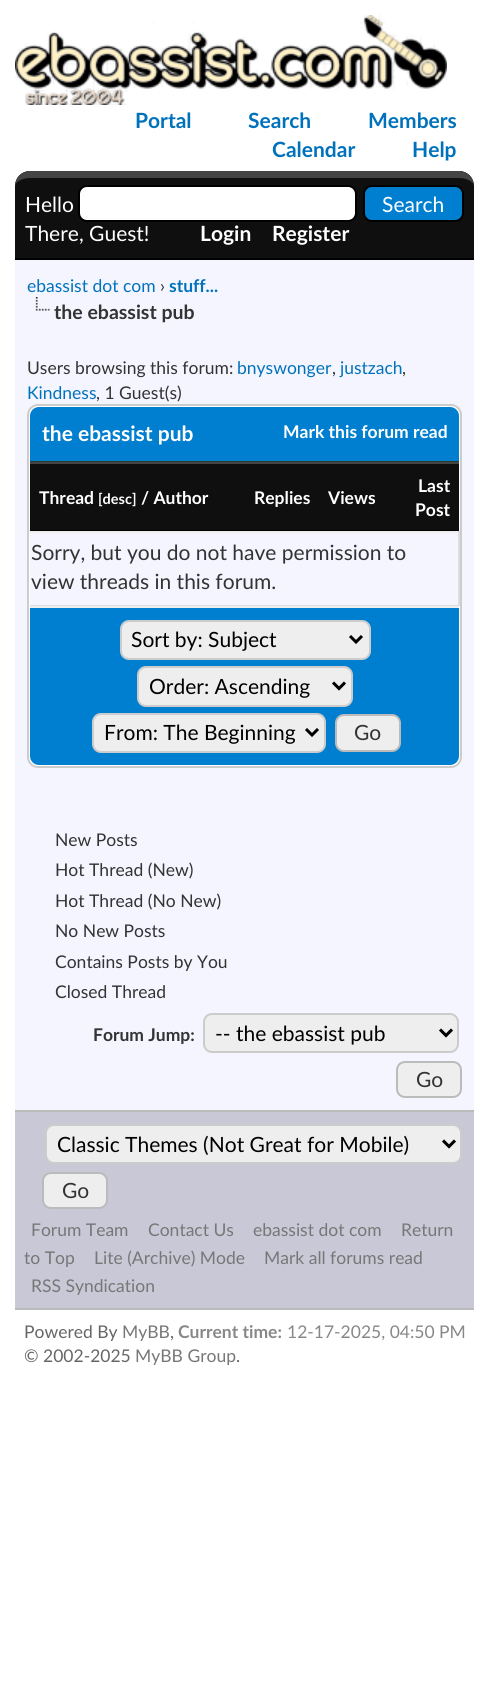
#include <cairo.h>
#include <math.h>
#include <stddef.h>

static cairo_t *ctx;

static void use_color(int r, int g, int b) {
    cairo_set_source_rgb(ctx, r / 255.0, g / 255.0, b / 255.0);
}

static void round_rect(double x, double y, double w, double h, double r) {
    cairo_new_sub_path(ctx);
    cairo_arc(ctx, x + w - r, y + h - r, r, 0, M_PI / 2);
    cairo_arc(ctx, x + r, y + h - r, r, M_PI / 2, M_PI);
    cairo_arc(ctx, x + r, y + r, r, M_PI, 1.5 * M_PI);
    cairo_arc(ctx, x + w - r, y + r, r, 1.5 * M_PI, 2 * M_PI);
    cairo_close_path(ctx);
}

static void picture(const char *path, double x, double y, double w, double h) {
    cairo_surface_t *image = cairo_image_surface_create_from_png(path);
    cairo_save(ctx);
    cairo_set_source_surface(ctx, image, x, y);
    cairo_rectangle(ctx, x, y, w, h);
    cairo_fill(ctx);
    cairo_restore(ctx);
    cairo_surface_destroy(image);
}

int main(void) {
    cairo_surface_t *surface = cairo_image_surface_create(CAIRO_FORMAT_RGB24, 489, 1689);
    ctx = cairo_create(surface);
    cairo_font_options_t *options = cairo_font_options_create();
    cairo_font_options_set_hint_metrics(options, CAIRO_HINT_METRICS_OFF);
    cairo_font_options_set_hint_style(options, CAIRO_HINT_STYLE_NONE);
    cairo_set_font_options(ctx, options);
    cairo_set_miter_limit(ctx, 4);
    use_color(255, 255, 255);
    cairo_paint(ctx);
    picture("img1.png", 15, 15, 432, 90);
    cairo_select_font_face(ctx, "Lato", CAIRO_FONT_SLANT_NORMAL, CAIRO_FONT_WEIGHT_BOLD);
    cairo_set_font_size(ctx, 21);
    use_color(0, 114, 188);
    cairo_move_to(ctx, 135, 128);
    cairo_show_text(ctx, "Portal");
    cairo_move_to(ctx, 248, 128);
    cairo_show_text(ctx, "Search");
    cairo_move_to(ctx, 368, 128);
    cairo_show_text(ctx, "Members");
    cairo_move_to(ctx, 272, 157);
    cairo_show_text(ctx, "Calendar");
    cairo_move_to(ctx, 412, 157);
    cairo_show_text(ctx, "Help");
    use_color(15, 15, 15);
    cairo_new_path(ctx);
    cairo_move_to(ctx, 30, 171);
    cairo_line_to(ctx, 459, 171);
    cairo_curve_to(ctx, 467.5, 171, 474, 177.5, 474, 186);
    cairo_line_to(ctx, 474, 260);
    cairo_line_to(ctx, 15, 260);
    cairo_line_to(ctx, 15, 186);
    cairo_curve_to(ctx, 15, 177.5, 21.5, 171, 30, 171);
    cairo_close_path(ctx);
    cairo_fill(ctx);
    use_color(68, 68, 68);
    cairo_new_path(ctx);
    cairo_move_to(ctx, 30, 171);
    cairo_curve_to(ctx, 22, 171, 15, 178, 15, 186);
    cairo_curve_to(ctx, 15, 182, 22, 178, 30, 178);
    cairo_line_to(ctx, 459, 178);
    cairo_curve_to(ctx, 467, 178, 474, 182, 474, 186);
    cairo_curve_to(ctx, 474, 178, 467, 171, 459, 171);
    cairo_close_path(ctx);
    cairo_fill(ctx);
    use_color(0, 0, 0);
    cairo_rectangle(ctx, 15, 258, 459, 2);
    cairo_fill(ctx);
    cairo_select_font_face(ctx, "Lato", CAIRO_FONT_SLANT_NORMAL, CAIRO_FONT_WEIGHT_NORMAL);
    use_color(255, 255, 255);
    cairo_move_to(ctx, 25, 212);
    cairo_show_text(ctx, "Hello");
    round_rect(79, 186, 277, 35, 8);
    cairo_fill_preserve(ctx);
    use_color(0, 0, 0);
    cairo_stroke(ctx);
    use_color(0, 127, 208);
    round_rect(364, 186, 99, 35, 8);
    cairo_fill_preserve(ctx);
    use_color(0, 0, 0);
    cairo_stroke(ctx);
    use_color(255, 255, 255);
    cairo_move_to(ctx, 382, 212);
    cairo_show_text(ctx, "Search");
    cairo_move_to(ctx, 25, 241);
    cairo_show_text(ctx, "There, Guest!");
    cairo_select_font_face(ctx, "Lato", CAIRO_FONT_SLANT_NORMAL, CAIRO_FONT_WEIGHT_BOLD);
    cairo_move_to(ctx, 200, 241);
    cairo_show_text(ctx, "Login");
    cairo_move_to(ctx, 272, 241);
    cairo_show_text(ctx, "Register");
    use_color(245, 245, 255);
    cairo_rectangle(ctx, 15, 260, 459, 850);
    cairo_fill(ctx);
    cairo_select_font_face(ctx, "Lato", CAIRO_FONT_SLANT_NORMAL, CAIRO_FONT_WEIGHT_NORMAL);
    cairo_set_font_size(ctx, 17.5);
    use_color(0, 114, 188);
    cairo_move_to(ctx, 27, 292);
    cairo_show_text(ctx, "ebassist dot com");
    use_color(51, 51, 51);
    cairo_move_to(ctx, 160, 292);
    cairo_show_text(ctx, "›");
    cairo_select_font_face(ctx, "Lato", CAIRO_FONT_SLANT_NORMAL, CAIRO_FONT_WEIGHT_BOLD);
    use_color(0, 114, 188);
    cairo_move_to(ctx, 169, 292);
    cairo_show_text(ctx, "stuff...");
    picture("img2.png", 35, 297, 15, 14);
    cairo_set_font_size(ctx, 19.5);
    use_color(51, 51, 51);
    cairo_move_to(ctx, 54, 319);
    cairo_show_text(ctx, "the ebassist pub");
    cairo_select_font_face(ctx, "Lato", CAIRO_FONT_SLANT_NORMAL, CAIRO_FONT_WEIGHT_NORMAL);
    cairo_set_font_size(ctx, 17.5);
    cairo_move_to(ctx, 27, 374);
    cairo_show_text(ctx, "Users browsing this forum:");
    use_color(0, 114, 188);
    cairo_move_to(ctx, 237, 374);
    cairo_show_text(ctx, "bnyswonger");
    use_color(51, 51, 51);
    cairo_move_to(ctx, 332, 374);
    cairo_show_text(ctx, ",");
    use_color(0, 114, 188);
    cairo_move_to(ctx, 340, 374);
    cairo_show_text(ctx, "justzach");
    use_color(51, 51, 51);
    cairo_move_to(ctx, 402, 374);
    cairo_show_text(ctx, ",");
    use_color(0, 114, 188);
    cairo_move_to(ctx, 27, 399);
    cairo_show_text(ctx, "Kindness");
    use_color(51, 51, 51);
    cairo_move_to(ctx, 96, 399);
    cairo_show_text(ctx, ", 1 Guest(s)");
    use_color(255, 255, 255);
    round_rect(28, 405, 433, 362, 10);
    cairo_fill_preserve(ctx);
    use_color(204, 204, 204);
    cairo_stroke(ctx);
    use_color(0, 127, 208);
    cairo_new_path(ctx);
    cairo_move_to(ctx, 39, 407);
    cairo_line_to(ctx, 450, 407);
    cairo_curve_to(ctx, 455, 407, 459, 411, 459, 416);
    cairo_line_to(ctx, 459, 462);
    cairo_line_to(ctx, 30, 462);
    cairo_line_to(ctx, 30, 416);
    cairo_curve_to(ctx, 30, 411, 34, 407, 39, 407);
    cairo_close_path(ctx);
    cairo_fill(ctx);
    use_color(38, 60, 48);
    cairo_rectangle(ctx, 30, 461, 429, 1);
    cairo_fill(ctx);
    cairo_select_font_face(ctx, "Lato", CAIRO_FONT_SLANT_NORMAL, CAIRO_FONT_WEIGHT_BOLD);
    cairo_set_font_size(ctx, 21);
    use_color(255, 255, 255);
    cairo_move_to(ctx, 42, 441);
    cairo_show_text(ctx, "the ebassist pub");
    cairo_set_font_size(ctx, 17.5);
    cairo_move_to(ctx, 283, 438);
    cairo_show_text(ctx, "Mark this forum read");
    use_color(15, 15, 15);
    cairo_rectangle(ctx, 30, 464, 429, 66);
    cairo_fill(ctx);
    use_color(68, 68, 68);
    cairo_rectangle(ctx, 30, 462, 429, 2);
    cairo_fill(ctx);
    use_color(0, 0, 0);
    cairo_rectangle(ctx, 30, 530, 429, 1);
    cairo_fill(ctx);
    use_color(255, 255, 255);
    cairo_move_to(ctx, 39, 504);
    cairo_show_text(ctx, "Thread");
    cairo_set_font_size(ctx, 14.5);
    cairo_move_to(ctx, 98, 504);
    cairo_show_text(ctx, "[desc]");
    cairo_set_font_size(ctx, 17.5);
    cairo_move_to(ctx, 141, 504);
    cairo_show_text(ctx, "/ Author");
    cairo_move_to(ctx, 254, 504);
    cairo_show_text(ctx, "Replies");
    cairo_move_to(ctx, 328, 504);
    cairo_show_text(ctx, "Views");
    cairo_move_to(ctx, 418, 492);
    cairo_show_text(ctx, "Last");
    cairo_move_to(ctx, 415, 516);
    cairo_show_text(ctx, "Post");
    use_color(245, 245, 255);
    cairo_rectangle(ctx, 30, 533, 428, 72);
    cairo_fill(ctx);
    use_color(238, 238, 238);
    cairo_rectangle(ctx, 30, 531, 429, 2);
    cairo_fill(ctx);
    use_color(221, 221, 221);
    cairo_rectangle(ctx, 458, 531, 2, 75);
    cairo_fill(ctx);
    cairo_rectangle(ctx, 30, 605, 429, 1);
    cairo_fill(ctx);
    cairo_select_font_face(ctx, "Lato", CAIRO_FONT_SLANT_NORMAL, CAIRO_FONT_WEIGHT_NORMAL);
    cairo_set_font_size(ctx, 21);
    use_color(51, 51, 51);
    cairo_move_to(ctx, 31, 560);
    cairo_show_text(ctx, "Sorry, but you do not have permission to");
    cairo_move_to(ctx, 31, 589);
    cairo_show_text(ctx, "view threads in this forum.");
    use_color(0, 127, 208);
    cairo_new_path(ctx);
    cairo_move_to(ctx, 30, 606);
    cairo_line_to(ctx, 459, 606);
    cairo_line_to(ctx, 459, 756);
    cairo_curve_to(ctx, 459, 761, 455, 765, 450, 765);
    cairo_line_to(ctx, 39, 765);
    cairo_curve_to(ctx, 34, 765, 30, 761, 30, 756);
    cairo_close_path(ctx);
    cairo_fill(ctx);
    use_color(238, 238, 238);
    cairo_rectangle(ctx, 30, 606, 429, 2);
    cairo_fill(ctx);
    round_rect(121, 621, 249, 38, 8);
    cairo_fill_preserve(ctx);
    use_color(204, 204, 204);
    cairo_stroke(ctx);
    cairo_new_path(ctx);
    cairo_move_to(ctx, 350, 636);
    cairo_line_to(ctx, 356, 642);
    cairo_line_to(ctx, 362, 636);
    use_color(0, 0, 0);
    cairo_set_line_width(ctx, 3);
    cairo_stroke(ctx);
    cairo_move_to(ctx, 131, 647);
    cairo_show_text(ctx, "Sort by: Subject");
    use_color(238, 238, 238);
    round_rect(138, 667, 214, 39, 8);
    cairo_fill_preserve(ctx);
    use_color(204, 204, 204);
    cairo_set_line_width(ctx, 2);
    cairo_stroke(ctx);
    cairo_new_path(ctx);
    cairo_move_to(ctx, 333, 682.5);
    cairo_line_to(ctx, 339, 688.5);
    cairo_line_to(ctx, 345, 682.5);
    use_color(0, 0, 0);
    cairo_set_line_width(ctx, 3);
    cairo_stroke(ctx);
    cairo_move_to(ctx, 149, 694);
    cairo_show_text(ctx, "Order: Ascending");
    use_color(238, 238, 238);
    round_rect(93, 714, 232, 38, 8);
    cairo_fill_preserve(ctx);
    use_color(204, 204, 204);
    cairo_set_line_width(ctx, 2);
    cairo_stroke(ctx);
    cairo_new_path(ctx);
    cairo_move_to(ctx, 306, 729);
    cairo_line_to(ctx, 312, 735);
    cairo_line_to(ctx, 318, 729);
    use_color(0, 0, 0);
    cairo_set_line_width(ctx, 3);
    cairo_stroke(ctx);
    cairo_move_to(ctx, 104, 740);
    cairo_show_text(ctx, "From: The Beginning");
    use_color(238, 238, 238);
    round_rect(336, 715, 64, 36, 8);
    cairo_fill_preserve(ctx);
    use_color(187, 187, 187);
    cairo_set_line_width(ctx, 2);
    cairo_stroke(ctx);
    use_color(51, 51, 51);
    cairo_move_to(ctx, 354, 740);
    cairo_show_text(ctx, "Go");
    cairo_set_font_size(ctx, 17.5);
    cairo_move_to(ctx, 55, 846);
    cairo_show_text(ctx, "New Posts");
    cairo_move_to(ctx, 55, 876);
    cairo_show_text(ctx, "Hot Thread (New)");
    cairo_move_to(ctx, 55, 907);
    cairo_show_text(ctx, "Hot Thread (No New)");
    cairo_move_to(ctx, 55, 937);
    cairo_show_text(ctx, "No New Posts");
    cairo_move_to(ctx, 55, 968);
    cairo_show_text(ctx, "Contains Posts by You");
    cairo_move_to(ctx, 55, 998);
    cairo_show_text(ctx, "Closed Thread");
    cairo_select_font_face(ctx, "Lato", CAIRO_FONT_SLANT_NORMAL, CAIRO_FONT_WEIGHT_BOLD);
    cairo_move_to(ctx, 93, 1041);
    cairo_show_text(ctx, "Forum Jump:");
    use_color(238, 238, 238);
    round_rect(204, 1014, 254, 38, 8);
    cairo_fill_preserve(ctx);
    use_color(204, 204, 204);
    cairo_stroke(ctx);
    cairo_new_path(ctx);
    cairo_move_to(ctx, 440, 1029.5);
    cairo_line_to(ctx, 446, 1035.5);
    cairo_line_to(ctx, 452, 1029.5);
    use_color(0, 0, 0);
    cairo_set_line_width(ctx, 3);
    cairo_stroke(ctx);
    cairo_select_font_face(ctx, "Lato", CAIRO_FONT_SLANT_NORMAL, CAIRO_FONT_WEIGHT_NORMAL);
    cairo_set_font_size(ctx, 21);
    cairo_move_to(ctx, 215, 1041);
    cairo_show_text(ctx, "-- the ebassist pub");
    use_color(238, 238, 238);
    round_rect(397, 1062, 64, 35, 8);
    cairo_fill_preserve(ctx);
    use_color(187, 187, 187);
    cairo_set_line_width(ctx, 2);
    cairo_stroke(ctx);
    use_color(51, 51, 51);
    cairo_move_to(ctx, 416, 1087);
    cairo_show_text(ctx, "Go");
    use_color(200, 200, 214);
    cairo_rectangle(ctx, 15, 1112, 459, 196);
    cairo_fill(ctx);
    use_color(187, 187, 187);
    cairo_rectangle(ctx, 15, 1110, 459, 2);
    cairo_fill(ctx);
    cairo_rectangle(ctx, 15, 1308, 459, 2);
    cairo_fill(ctx);
    use_color(238, 238, 238);
    round_rect(46, 1125, 415, 38, 8);
    cairo_fill_preserve(ctx);
    use_color(204, 204, 204);
    cairo_stroke(ctx);
    cairo_new_path(ctx);
    cairo_move_to(ctx, 443, 1140.5);
    cairo_line_to(ctx, 449, 1146.5);
    cairo_line_to(ctx, 455, 1140.5);
    use_color(0, 0, 0);
    cairo_set_line_width(ctx, 3);
    cairo_stroke(ctx);
    cairo_move_to(ctx, 57, 1152);
    cairo_show_text(ctx, "Classic Themes (Not Great for Mobile)");
    use_color(238, 238, 238);
    round_rect(43, 1173, 64, 35, 8);
    cairo_fill_preserve(ctx);
    use_color(187, 187, 187);
    cairo_set_line_width(ctx, 2);
    cairo_stroke(ctx);
    use_color(51, 51, 51);
    cairo_move_to(ctx, 62, 1198);
    cairo_show_text(ctx, "Go");
    cairo_set_font_size(ctx, 17.5);
    use_color(119, 119, 119);
    cairo_move_to(ctx, 31, 1236);
    cairo_show_text(ctx, "Forum Team");
    cairo_move_to(ctx, 148, 1236);
    cairo_show_text(ctx, "Contact Us");
    cairo_move_to(ctx, 253, 1236);
    cairo_show_text(ctx, "ebassist dot com");
    cairo_move_to(ctx, 401, 1236);
    cairo_show_text(ctx, "Return");
    cairo_move_to(ctx, 24, 1264);
    cairo_show_text(ctx, "to Top");
    cairo_move_to(ctx, 94, 1264);
    cairo_show_text(ctx, "Lite (Archive) Mode");
    cairo_move_to(ctx, 264, 1264);
    cairo_show_text(ctx, "Mark all forums read");
    cairo_move_to(ctx, 31, 1292);
    cairo_show_text(ctx, "RSS Syndication");
    use_color(102, 102, 102);
    cairo_move_to(ctx, 24, 1338);
    cairo_show_text(ctx, "Powered By");
    use_color(119, 119, 119);
    cairo_move_to(ctx, 122, 1338);
    cairo_show_text(ctx, "MyBB");
    use_color(102, 102, 102);
    cairo_move_to(ctx, 170, 1338);
    cairo_show_text(ctx, ",");
    cairo_select_font_face(ctx, "Lato", CAIRO_FONT_SLANT_NORMAL, CAIRO_FONT_WEIGHT_BOLD);
    use_color(136, 136, 136);
    cairo_move_to(ctx, 178, 1338);
    cairo_show_text(ctx, "Current time:");
    cairo_select_font_face(ctx, "Lato", CAIRO_FONT_SLANT_NORMAL, CAIRO_FONT_WEIGHT_NORMAL);
    cairo_move_to(ctx, 287, 1338);
    cairo_show_text(ctx, "12-17-2025, 04:50 PM");
    use_color(102, 102, 102);
    cairo_move_to(ctx, 24, 1362);
    cairo_show_text(ctx, "© 2002-2025");
    use_color(119, 119, 119);
    cairo_move_to(ctx, 135, 1362);
    cairo_show_text(ctx, "MyBB Group");
    use_color(102, 102, 102);
    cairo_move_to(ctx, 236, 1362);
    cairo_show_text(ctx, ".");
    cairo_surface_write_to_png(surface, "result.png");
    cairo_font_options_destroy(options);
    cairo_destroy(ctx);
    cairo_surface_destroy(surface);
    return 0;
}
